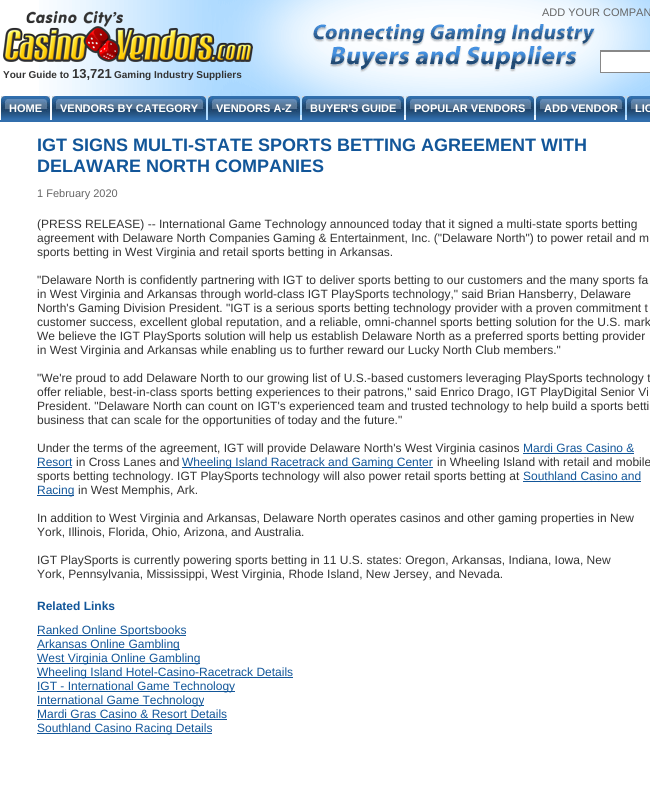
#include <cairo.h>
#include <math.h>
#include <stddef.h>

static cairo_t *ctx;

static void use_color(int r, int g, int b) {
    cairo_set_source_rgb(ctx, r / 255.0, g / 255.0, b / 255.0);
}

static void picture(const char *path, double x, double y, double w, double h) {
    cairo_surface_t *image = cairo_image_surface_create_from_png(path);
    cairo_save(ctx);
    cairo_set_source_surface(ctx, image, x, y);
    cairo_rectangle(ctx, x, y, w, h);
    cairo_fill(ctx);
    cairo_restore(ctx);
    cairo_surface_destroy(image);
}

int main(void) {
    cairo_surface_t *surface = cairo_image_surface_create(CAIRO_FORMAT_RGB24, 650, 806);
    ctx = cairo_create(surface);
    cairo_font_options_t *options = cairo_font_options_create();
    cairo_font_options_set_hint_metrics(options, CAIRO_HINT_METRICS_OFF);
    cairo_font_options_set_hint_style(options, CAIRO_HINT_STYLE_NONE);
    cairo_set_font_options(ctx, options);
    cairo_set_miter_limit(ctx, 4);
    use_color(255, 255, 255);
    cairo_paint(ctx);
    picture("img1.png", 39, 0, 611, 120);
    cairo_select_font_face(ctx, "Liberation Sans", CAIRO_FONT_SLANT_NORMAL, CAIRO_FONT_WEIGHT_NORMAL);
    cairo_set_font_size(ctx, 11);
    use_color(102, 102, 102);
    cairo_move_to(ctx, 542, 16);
    cairo_show_text(ctx, "ADD YOUR COMPAN");
    use_color(255, 255, 255);
    cairo_rectangle(ctx, 601, 52, 49, 20);
    cairo_fill(ctx);
    use_color(136, 136, 136);
    cairo_rectangle(ctx, 600, 50, 50, 2);
    cairo_fill(ctx);
    cairo_rectangle(ctx, 600, 72, 50, 1);
    cairo_fill(ctx);
    cairo_rectangle(ctx, 600, 50, 1, 23);
    cairo_fill(ctx);
    picture("img2.png", 3, 11, 250, 51);
    cairo_select_font_face(ctx, "Liberation Sans", CAIRO_FONT_SLANT_NORMAL, CAIRO_FONT_WEIGHT_BOLD);
    cairo_set_font_size(ctx, 10);
    use_color(51, 51, 51);
    cairo_move_to(ctx, 3, 78);
    cairo_show_text(ctx, "Your Guide to");
    cairo_set_font_size(ctx, 13);
    cairo_move_to(ctx, 72, 78);
    cairo_show_text(ctx, "13,721");
    cairo_set_font_size(ctx, 10);
    cairo_move_to(ctx, 114, 78);
    cairo_show_text(ctx, "Gaming Industry Suppliers");
    picture("img3.png", 1, 96, 6, 24);
    picture("img4.png", 7, 96, 37, 24);
    cairo_set_font_size(ctx, 11);
    use_color(255, 255, 255);
    cairo_move_to(ctx, 9, 112);
    cairo_show_text(ctx, "HOME");
    picture("img5.png", 44, 96, 6, 24);
    picture("img3.png", 52, 96, 6, 24);
    picture("img6.png", 58, 96, 142, 24);
    cairo_move_to(ctx, 60, 112);
    cairo_show_text(ctx, "VENDORS BY CATEGORY");
    picture("img5.png", 200, 96, 6, 24);
    picture("img3.png", 208, 96, 6, 24);
    picture("img7.png", 214, 96, 80, 24);
    cairo_move_to(ctx, 216, 112);
    cairo_show_text(ctx, "VENDORS A-Z");
    picture("img5.png", 294, 96, 6, 24);
    picture("img3.png", 302, 96, 6, 24);
    picture("img8.png", 308, 96, 90, 24);
    cairo_move_to(ctx, 310, 112);
    cairo_show_text(ctx, "BUYER'S GUIDE");
    picture("img5.png", 398, 96, 6, 24);
    picture("img3.png", 406, 96, 6, 24);
    picture("img9.png", 412, 96, 116, 24);
    cairo_move_to(ctx, 414, 112);
    cairo_show_text(ctx, "POPULAR VENDORS");
    picture("img5.png", 528, 96, 6, 24);
    picture("img3.png", 536, 96, 6, 24);
    picture("img10.png", 542, 96, 77, 24);
    cairo_move_to(ctx, 544, 112);
    cairo_show_text(ctx, "ADD VENDOR");
    picture("img5.png", 619, 96, 6, 24);
    picture("img3.png", 627, 96, 6, 24);
    picture("img11.png", 633, 96, 17, 24);
    cairo_move_to(ctx, 635, 112);
    cairo_show_text(ctx, "LIC");
    use_color(49, 110, 172);
    cairo_rectangle(ctx, 0, 120, 650, 2);
    cairo_fill(ctx);
    cairo_set_font_size(ctx, 18);
    use_color(18, 86, 153);
    cairo_move_to(ctx, 37, 151);
    cairo_show_text(ctx, "IGT SIGNS MULTI-STATE SPORTS BETTING AGREEMENT WITH");
    cairo_move_to(ctx, 37, 172);
    cairo_show_text(ctx, "DELAWARE NORTH COMPANIES");
    cairo_select_font_face(ctx, "Liberation Sans", CAIRO_FONT_SLANT_NORMAL, CAIRO_FONT_WEIGHT_NORMAL);
    cairo_set_font_size(ctx, 11);
    use_color(102, 102, 102);
    cairo_move_to(ctx, 37, 197);
    cairo_show_text(ctx, "1 February 2020");
    cairo_set_font_size(ctx, 12);
    use_color(51, 51, 51);
    cairo_move_to(ctx, 37, 228);
    cairo_show_text(ctx, "(PRESS RELEASE) -- International Game Technology announced today that it signed a multi-state sports betting");
    cairo_move_to(ctx, 37, 242);
    cairo_show_text(ctx, "agreement with Delaware North Companies Gaming & Entertainment, Inc. (\"Delaware North\") to power retail and m");
    cairo_move_to(ctx, 37, 256);
    cairo_show_text(ctx, "sports betting in West Virginia and retail sports betting in Arkansas.");
    cairo_move_to(ctx, 37, 284);
    cairo_show_text(ctx, "\"Delaware North is confidently partnering with IGT to deliver sports betting to our customers and the many sports fa");
    cairo_move_to(ctx, 37, 298);
    cairo_show_text(ctx, "in West Virginia and Arkansas through world-class IGT PlaySports technology,\" said Brian Hansberry, Delaware");
    cairo_move_to(ctx, 37, 312);
    cairo_show_text(ctx, "North's Gaming Division President. \"IGT is a serious sports betting technology provider with a proven commitment t");
    cairo_move_to(ctx, 37, 326);
    cairo_show_text(ctx, "customer success, excellent global reputation, and a reliable, omni-channel sports betting solution for the U.S. mark");
    cairo_move_to(ctx, 37, 340);
    cairo_show_text(ctx, "We believe the IGT PlaySports solution will help us establish Delaware North as a preferred sports betting provider");
    cairo_move_to(ctx, 37, 354);
    cairo_show_text(ctx, "in West Virginia and Arkansas while enabling us to further reward our Lucky North Club members.\"");
    cairo_move_to(ctx, 37, 382);
    cairo_show_text(ctx, "\"We're proud to add Delaware North to our growing list of U.S.-based customers leveraging PlaySports technology t");
    cairo_move_to(ctx, 37, 396);
    cairo_show_text(ctx, "offer reliable, best-in-class sports betting experiences to their patrons,\" said Enrico Drago, IGT PlayDigital Senior Vi");
    cairo_move_to(ctx, 37, 410);
    cairo_show_text(ctx, "President. \"Delaware North can count on IGT's experienced team and trusted technology to help build a sports betti");
    cairo_move_to(ctx, 37, 424);
    cairo_show_text(ctx, "business that can scale for the opportunities of today and the future.\"");
    cairo_move_to(ctx, 37, 452);
    cairo_show_text(ctx, "Under the terms of the agreement, IGT will provide Delaware North's West Virginia casinos");
    use_color(18, 86, 153);
    cairo_move_to(ctx, 523, 452);
    cairo_show_text(ctx, "Mardi Gras Casino &");
    cairo_rectangle(ctx, 523, 453, 111, 1);
    cairo_fill(ctx);
    cairo_move_to(ctx, 37, 466);
    cairo_show_text(ctx, "Resort");
    cairo_rectangle(ctx, 37, 467, 35, 1);
    cairo_fill(ctx);
    use_color(51, 51, 51);
    cairo_move_to(ctx, 76, 466);
    cairo_show_text(ctx, "in Cross Lanes and");
    use_color(18, 86, 153);
    cairo_rectangle(ctx, 182, 467, 251, 1);
    cairo_fill(ctx);
    cairo_move_to(ctx, 182, 466);
    cairo_show_text(ctx, "Wheeling Island Racetrack and Gaming Center");
    use_color(51, 51, 51);
    cairo_move_to(ctx, 437, 466);
    cairo_show_text(ctx, "in Wheeling Island with retail and mobile");
    cairo_move_to(ctx, 37, 480);
    cairo_show_text(ctx, "sports betting technology. IGT PlaySports technology will also power retail sports betting at");
    use_color(18, 86, 153);
    cairo_move_to(ctx, 523, 480);
    cairo_show_text(ctx, "Southland Casino and");
    cairo_rectangle(ctx, 523, 481, 118, 1);
    cairo_fill(ctx);
    cairo_rectangle(ctx, 37, 495, 37, 1);
    cairo_fill(ctx);
    cairo_move_to(ctx, 37, 494);
    cairo_show_text(ctx, "Racing");
    use_color(51, 51, 51);
    cairo_move_to(ctx, 78, 494);
    cairo_show_text(ctx, "in West Memphis, Ark.");
    cairo_move_to(ctx, 37, 522);
    cairo_show_text(ctx, "In addition to West Virginia and Arkansas, Delaware North operates casinos and other gaming properties in New");
    cairo_move_to(ctx, 37, 536);
    cairo_show_text(ctx, "York, Illinois, Florida, Ohio, Arizona, and Australia.");
    cairo_move_to(ctx, 37, 564);
    cairo_show_text(ctx, "IGT PlaySports is currently powering sports betting in 11 U.S. states: Oregon, Arkansas, Indiana, Iowa, New");
    cairo_move_to(ctx, 37, 578);
    cairo_show_text(ctx, "York, Pennsylvania, Mississippi, West Virginia, Rhode Island, New Jersey, and Nevada.");
    cairo_select_font_face(ctx, "Liberation Sans", CAIRO_FONT_SLANT_NORMAL, CAIRO_FONT_WEIGHT_BOLD);
    use_color(18, 86, 153);
    cairo_move_to(ctx, 37, 610);
    cairo_show_text(ctx, "Related Links");
    cairo_rectangle(ctx, 37, 635, 149, 1);
    cairo_fill(ctx);
    cairo_select_font_face(ctx, "Liberation Sans", CAIRO_FONT_SLANT_NORMAL, CAIRO_FONT_WEIGHT_NORMAL);
    cairo_move_to(ctx, 37, 634);
    cairo_show_text(ctx, "Ranked Online Sportsbooks");
    cairo_rectangle(ctx, 37, 649, 143, 1);
    cairo_fill(ctx);
    cairo_move_to(ctx, 37, 648);
    cairo_show_text(ctx, "Arkansas Online Gambling");
    cairo_rectangle(ctx, 37, 663, 163, 1);
    cairo_fill(ctx);
    cairo_move_to(ctx, 37, 662);
    cairo_show_text(ctx, "West Virginia Online Gambling");
    cairo_rectangle(ctx, 37, 677, 256, 1);
    cairo_fill(ctx);
    cairo_move_to(ctx, 37, 676);
    cairo_show_text(ctx, "Wheeling Island Hotel-Casino-Racetrack Details");
    cairo_rectangle(ctx, 37, 691, 198, 1);
    cairo_fill(ctx);
    cairo_move_to(ctx, 37, 690);
    cairo_show_text(ctx, "IGT - International Game Technology");
    cairo_rectangle(ctx, 37, 705, 167, 1);
    cairo_fill(ctx);
    cairo_move_to(ctx, 37, 704);
    cairo_show_text(ctx, "International Game Technology");
    cairo_move_to(ctx, 37, 718);
    cairo_show_text(ctx, "Mardi Gras Casino & Resort Details");
    cairo_rectangle(ctx, 37, 719, 190, 1);
    cairo_fill(ctx);
    cairo_rectangle(ctx, 37, 733, 175, 1);
    cairo_fill(ctx);
    cairo_move_to(ctx, 37, 732);
    cairo_show_text(ctx, "Southland Casino Racing Details");
    cairo_surface_write_to_png(surface, "result.png");
    cairo_font_options_destroy(options);
    cairo_destroy(ctx);
    cairo_surface_destroy(surface);
    return 0;
}
